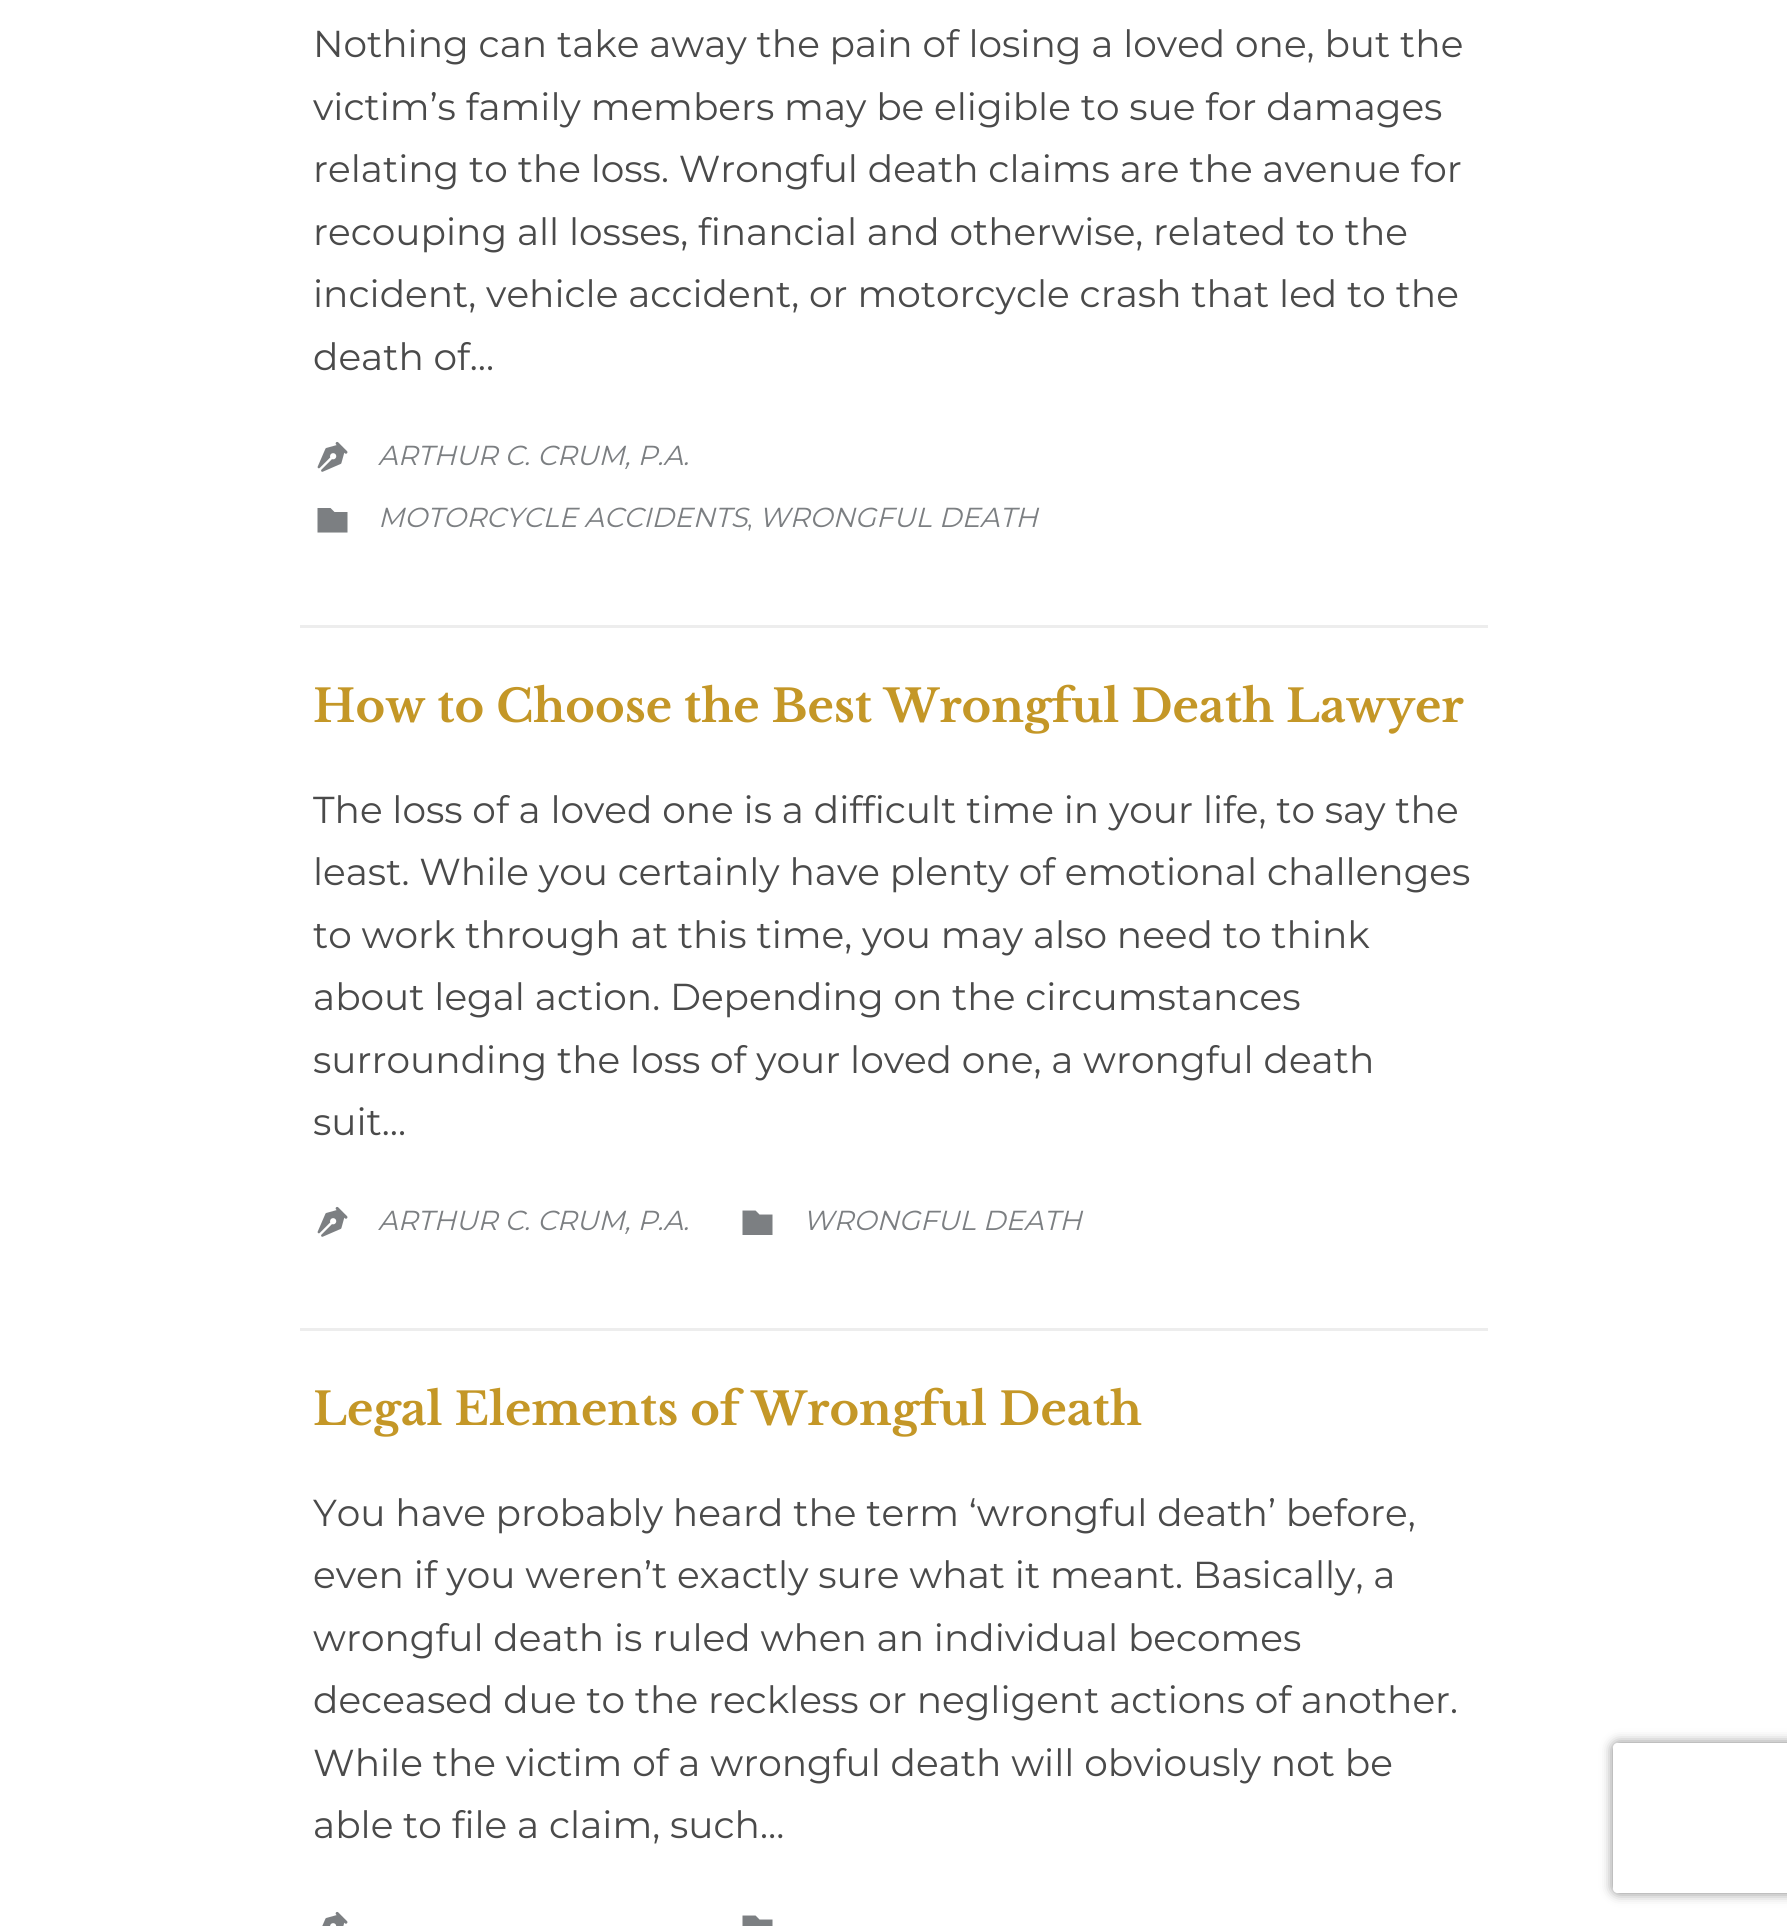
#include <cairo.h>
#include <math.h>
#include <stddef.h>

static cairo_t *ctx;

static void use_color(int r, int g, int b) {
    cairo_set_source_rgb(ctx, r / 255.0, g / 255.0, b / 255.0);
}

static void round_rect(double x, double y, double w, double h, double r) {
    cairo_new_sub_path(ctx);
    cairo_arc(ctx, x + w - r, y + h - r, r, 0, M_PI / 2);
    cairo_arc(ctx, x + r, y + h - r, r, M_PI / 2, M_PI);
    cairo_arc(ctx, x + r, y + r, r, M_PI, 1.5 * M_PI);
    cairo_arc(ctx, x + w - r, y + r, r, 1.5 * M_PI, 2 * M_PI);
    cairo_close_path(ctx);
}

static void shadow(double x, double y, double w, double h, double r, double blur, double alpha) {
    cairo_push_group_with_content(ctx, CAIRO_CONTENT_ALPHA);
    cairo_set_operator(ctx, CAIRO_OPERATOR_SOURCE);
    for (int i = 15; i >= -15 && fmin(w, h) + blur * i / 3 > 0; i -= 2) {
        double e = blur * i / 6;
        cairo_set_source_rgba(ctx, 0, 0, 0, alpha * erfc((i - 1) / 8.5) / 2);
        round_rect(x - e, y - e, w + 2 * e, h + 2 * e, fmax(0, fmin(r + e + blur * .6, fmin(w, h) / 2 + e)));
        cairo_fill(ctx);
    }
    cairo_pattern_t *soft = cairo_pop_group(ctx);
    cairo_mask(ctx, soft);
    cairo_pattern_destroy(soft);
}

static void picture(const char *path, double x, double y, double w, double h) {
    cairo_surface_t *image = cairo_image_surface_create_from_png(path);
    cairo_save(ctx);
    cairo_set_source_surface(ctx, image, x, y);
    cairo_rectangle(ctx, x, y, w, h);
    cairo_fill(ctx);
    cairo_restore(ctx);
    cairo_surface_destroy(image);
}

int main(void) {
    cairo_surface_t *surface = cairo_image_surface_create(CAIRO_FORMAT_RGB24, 1787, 1926);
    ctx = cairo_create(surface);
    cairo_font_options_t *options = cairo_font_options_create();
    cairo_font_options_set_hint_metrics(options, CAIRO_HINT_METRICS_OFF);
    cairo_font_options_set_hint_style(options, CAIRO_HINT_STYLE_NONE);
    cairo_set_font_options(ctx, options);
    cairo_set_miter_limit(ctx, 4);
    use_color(255, 255, 255);
    cairo_paint(ctx);
    use_color(237, 237, 237);
    cairo_rectangle(ctx, 300, 625, 1188, 3);
    cairo_fill(ctx);
    cairo_select_font_face(ctx, "Montserrat", CAIRO_FONT_SLANT_NORMAL, CAIRO_FONT_WEIGHT_NORMAL);
    cairo_set_font_size(ctx, 37.5);
    use_color(74, 74, 74);
    cairo_move_to(ctx, 313, 57);
    cairo_show_text(ctx, "Nothing can take away the pain of losing a loved one, but the");
    cairo_move_to(ctx, 313, 120);
    cairo_show_text(ctx, "victim’s family members may be eligible to sue for damages");
    cairo_move_to(ctx, 313, 182);
    cairo_show_text(ctx, "relating to the loss. Wrongful death claims are the avenue for");
    cairo_move_to(ctx, 313, 245);
    cairo_show_text(ctx, "recouping all losses, financial and otherwise, related to the");
    cairo_move_to(ctx, 313, 307);
    cairo_show_text(ctx, "incident, vehicle accident, or motorcycle crash that led to the");
    cairo_move_to(ctx, 313, 370);
    cairo_show_text(ctx, "death of…");
    picture("img1.png", 317, 441, 31, 31);
    cairo_select_font_face(ctx, "Montserrat", CAIRO_FONT_SLANT_ITALIC, CAIRO_FONT_WEIGHT_NORMAL);
    cairo_set_font_size(ctx, 27.5);
    use_color(124, 127, 130);
    cairo_move_to(ctx, 378, 465);
    cairo_show_text(ctx, "ARTHUR C. CRUM, P.A.");
    cairo_new_path(ctx);
    cairo_move_to(ctx, 330.5, 508);
    cairo_line_to(ctx, 334.5, 512);
    cairo_line_to(ctx, 347.5, 512);
    cairo_line_to(ctx, 347.5, 532.5);
    cairo_line_to(ctx, 317.5, 532.5);
    cairo_line_to(ctx, 317.5, 508);
    cairo_close_path(ctx);
    cairo_fill(ctx);
    cairo_move_to(ctx, 378, 527);
    cairo_show_text(ctx, "MOTORCYCLE ACCIDENTS");
    cairo_move_to(ctx, 759, 527);
    cairo_show_text(ctx, "WRONGFUL DEATH");
    cairo_select_font_face(ctx, "Montserrat", CAIRO_FONT_SLANT_NORMAL, CAIRO_FONT_WEIGHT_NORMAL);
    cairo_set_font_size(ctx, 25);
    cairo_move_to(ctx, 747, 527);
    cairo_show_text(ctx, ",");
    use_color(237, 237, 237);
    cairo_rectangle(ctx, 300, 1328, 1188, 3);
    cairo_fill(ctx);
    cairo_select_font_face(ctx, "Libre Baskerville", CAIRO_FONT_SLANT_NORMAL, CAIRO_FONT_WEIGHT_BOLD);
    cairo_set_font_size(ctx, 45);
    use_color(196, 151, 39);
    cairo_move_to(ctx, 313, 722);
    cairo_show_text(ctx, "How to Choose the Best Wrongful Death Lawyer");
    cairo_select_font_face(ctx, "Montserrat", CAIRO_FONT_SLANT_NORMAL, CAIRO_FONT_WEIGHT_NORMAL);
    cairo_set_font_size(ctx, 37.5);
    use_color(74, 74, 74);
    cairo_move_to(ctx, 313, 823);
    cairo_show_text(ctx, "The loss of a loved one is a difficult time in your life, to say the");
    cairo_move_to(ctx, 313, 885);
    cairo_show_text(ctx, "least. While you certainly have plenty of emotional challenges");
    cairo_move_to(ctx, 313, 948);
    cairo_show_text(ctx, "to work through at this time, you may also need to think");
    cairo_move_to(ctx, 313, 1010);
    cairo_show_text(ctx, "about legal action. Depending on the circumstances");
    cairo_move_to(ctx, 313, 1073);
    cairo_show_text(ctx, "surrounding the loss of your loved one, a wrongful death");
    cairo_move_to(ctx, 313, 1135);
    cairo_show_text(ctx, "suit…");
    picture("img1.png", 317, 1206, 31, 31);
    cairo_select_font_face(ctx, "Montserrat", CAIRO_FONT_SLANT_ITALIC, CAIRO_FONT_WEIGHT_NORMAL);
    cairo_set_font_size(ctx, 27.5);
    use_color(124, 127, 130);
    cairo_move_to(ctx, 378, 1230);
    cairo_show_text(ctx, "ARTHUR C. CRUM, P.A.");
    cairo_new_path(ctx);
    cairo_move_to(ctx, 755.5, 1210.5);
    cairo_line_to(ctx, 759.5, 1214.5);
    cairo_line_to(ctx, 772.5, 1214.5);
    cairo_line_to(ctx, 772.5, 1235);
    cairo_line_to(ctx, 742.5, 1235);
    cairo_line_to(ctx, 742.5, 1210.5);
    cairo_close_path(ctx);
    cairo_fill(ctx);
    cairo_move_to(ctx, 803, 1230);
    cairo_show_text(ctx, "WRONGFUL DEATH");
    cairo_select_font_face(ctx, "Libre Baskerville", CAIRO_FONT_SLANT_NORMAL, CAIRO_FONT_WEIGHT_BOLD);
    cairo_set_font_size(ctx, 45);
    use_color(196, 151, 39);
    cairo_move_to(ctx, 313, 1425);
    cairo_show_text(ctx, "Legal Elements of Wrongful Death");
    cairo_select_font_face(ctx, "Montserrat", CAIRO_FONT_SLANT_NORMAL, CAIRO_FONT_WEIGHT_NORMAL);
    cairo_set_font_size(ctx, 37.5);
    use_color(74, 74, 74);
    cairo_move_to(ctx, 313, 1526);
    cairo_show_text(ctx, "You have probably heard the term ‘wrongful death’ before,");
    cairo_move_to(ctx, 313, 1588);
    cairo_show_text(ctx, "even if you weren’t exactly sure what it meant. Basically, a");
    cairo_move_to(ctx, 313, 1651);
    cairo_show_text(ctx, "wrongful death is ruled when an individual becomes");
    cairo_move_to(ctx, 313, 1713);
    cairo_show_text(ctx, "deceased due to the reckless or negligent actions of another.");
    cairo_move_to(ctx, 313, 1776);
    cairo_show_text(ctx, "While the victim of a wrongful death will obviously not be");
    cairo_move_to(ctx, 313, 1838);
    cairo_show_text(ctx, "able to file a claim, such…");
    picture("img2.png", 322, 1911, 26, 15);
    use_color(124, 127, 130);
    cairo_new_path(ctx);
    cairo_move_to(ctx, 755.5, 1915.5);
    cairo_line_to(ctx, 759.5, 1919.5);
    cairo_line_to(ctx, 772.5, 1919.5);
    cairo_line_to(ctx, 772.5, 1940);
    cairo_line_to(ctx, 742.5, 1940);
    cairo_line_to(ctx, 742.5, 1915.5);
    cairo_close_path(ctx);
    cairo_fill(ctx);
    cairo_save(ctx);
    cairo_set_fill_rule(ctx, CAIRO_FILL_RULE_EVEN_ODD);
    cairo_new_path(ctx);
    cairo_move_to(ctx, 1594, 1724);
    cairo_line_to(ctx, 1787, 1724);
    cairo_line_to(ctx, 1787, 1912);
    cairo_line_to(ctx, 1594, 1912);
    cairo_close_path(ctx);
    cairo_move_to(ctx, 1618, 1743);
    cairo_line_to(ctx, 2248, 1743);
    cairo_curve_to(ctx, 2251, 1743, 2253, 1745, 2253, 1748);
    cairo_line_to(ctx, 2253, 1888);
    cairo_curve_to(ctx, 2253, 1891, 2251, 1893, 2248, 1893);
    cairo_line_to(ctx, 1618, 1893);
    cairo_curve_to(ctx, 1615, 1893, 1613, 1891, 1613, 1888);
    cairo_line_to(ctx, 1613, 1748);
    cairo_curve_to(ctx, 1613, 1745, 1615, 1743, 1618, 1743);
    cairo_close_path(ctx);
    cairo_clip(ctx);
    use_color(128, 128, 128);
    shadow(1613, 1743, 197, 150, 5, 6, 1);
    cairo_restore(ctx);
    cairo_surface_write_to_png(surface, "result.png");
    cairo_font_options_destroy(options);
    cairo_destroy(ctx);
    cairo_surface_destroy(surface);
    return 0;
}
